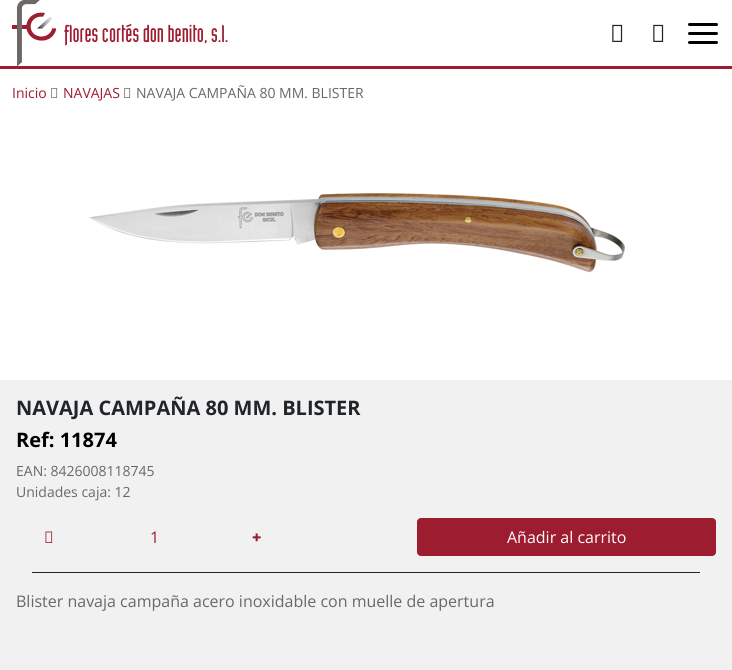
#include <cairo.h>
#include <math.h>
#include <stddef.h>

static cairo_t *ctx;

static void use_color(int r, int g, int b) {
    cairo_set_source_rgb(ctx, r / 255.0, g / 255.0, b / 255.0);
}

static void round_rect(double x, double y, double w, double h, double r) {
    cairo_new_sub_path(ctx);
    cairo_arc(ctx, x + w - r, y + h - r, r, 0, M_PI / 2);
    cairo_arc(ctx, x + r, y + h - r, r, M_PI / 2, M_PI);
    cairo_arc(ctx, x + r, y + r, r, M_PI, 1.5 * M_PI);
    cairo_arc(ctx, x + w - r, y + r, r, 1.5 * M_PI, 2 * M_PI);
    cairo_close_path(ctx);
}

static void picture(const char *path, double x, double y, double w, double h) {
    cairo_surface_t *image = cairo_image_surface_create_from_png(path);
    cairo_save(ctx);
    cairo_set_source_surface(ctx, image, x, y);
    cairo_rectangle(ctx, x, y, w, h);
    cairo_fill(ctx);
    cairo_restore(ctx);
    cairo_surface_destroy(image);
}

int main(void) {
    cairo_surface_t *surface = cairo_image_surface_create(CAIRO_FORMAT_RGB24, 732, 670);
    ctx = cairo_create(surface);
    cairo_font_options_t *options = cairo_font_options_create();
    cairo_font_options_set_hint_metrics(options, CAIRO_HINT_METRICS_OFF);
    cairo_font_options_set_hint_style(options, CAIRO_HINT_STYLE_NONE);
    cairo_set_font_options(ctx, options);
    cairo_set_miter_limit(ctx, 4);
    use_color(255, 255, 255);
    cairo_paint(ctx);
    use_color(157, 28, 47);
    cairo_rectangle(ctx, 0, 66, 732, 3);
    cairo_fill(ctx);
    picture("img1.png", 12, 0, 44, 66);
    cairo_select_font_face(ctx, "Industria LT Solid", CAIRO_FONT_SLANT_NORMAL, CAIRO_FONT_WEIGHT_NORMAL);
    cairo_set_font_size(ctx, 24);
    cairo_move_to(ctx, 64, 42);
    cairo_show_text(ctx, "flores cortés don benito, s.l.");
    picture("img2.png", 612, 24, 11, 18);
    picture("img2.png", 653, 24, 11, 18);
    use_color(0, 0, 0);
    round_rect(688, 23, 30, 3, 1.5);
    cairo_fill(ctx);
    round_rect(688, 32, 30, 3, 1.5);
    cairo_fill(ctx);
    round_rect(688, 41, 30, 3, 1.5);
    cairo_fill(ctx);
    cairo_select_font_face(ctx, "Open Sans", CAIRO_FONT_SLANT_NORMAL, CAIRO_FONT_WEIGHT_NORMAL);
    cairo_set_font_size(ctx, 14);
    use_color(157, 28, 47);
    cairo_move_to(ctx, 12, 98);
    cairo_show_text(ctx, "Inicio");
    picture("img3.png", 51, 88, 7, 10);
    cairo_move_to(ctx, 63, 98);
    cairo_show_text(ctx, "NAVAJAS");
    picture("img3.png", 124, 88, 7, 10);
    use_color(107, 104, 101);
    cairo_move_to(ctx, 136, 98);
    cairo_show_text(ctx, "NAVAJA CAMPAÑA 80 MM. BLISTER");
    picture("img4.png", 89, 193, 536, 81);
    use_color(241, 241, 241);
    cairo_rectangle(ctx, 0, 380, 732, 290);
    cairo_fill(ctx);
    cairo_select_font_face(ctx, "Open Sans", CAIRO_FONT_SLANT_NORMAL, CAIRO_FONT_WEIGHT_BOLD);
    cairo_set_font_size(ctx, 20);
    use_color(33, 37, 41);
    cairo_move_to(ctx, 16, 415);
    cairo_show_text(ctx, "NAVAJA CAMPAÑA 80 MM. BLISTER");
    use_color(0, 0, 0);
    cairo_move_to(ctx, 16, 447);
    cairo_show_text(ctx, "Ref: 11874");
    cairo_select_font_face(ctx, "Open Sans", CAIRO_FONT_SLANT_NORMAL, CAIRO_FONT_WEIGHT_NORMAL);
    cairo_set_font_size(ctx, 14);
    use_color(107, 104, 101);
    cairo_move_to(ctx, 16, 476);
    cairo_show_text(ctx, "EAN: 8426008118745");
    cairo_move_to(ctx, 16, 497);
    cairo_show_text(ctx, "Unidades caja: 12");
    picture("img5.png", 45, 531, 8, 12);
    cairo_set_font_size(ctx, 16);
    use_color(157, 28, 47);
    cairo_move_to(ctx, 150, 543);
    cairo_show_text(ctx, "1");
    cairo_select_font_face(ctx, "Noto Sans Black", CAIRO_FONT_SLANT_NORMAL, CAIRO_FONT_WEIGHT_NORMAL);
    cairo_move_to(ctx, 252, 543);
    cairo_show_text(ctx, "+");
    round_rect(417.5, 518.5, 298, 37, 3.5);
    cairo_fill_preserve(ctx);
    cairo_set_line_width(ctx, 1);
    cairo_stroke(ctx);
    cairo_select_font_face(ctx, "Open Sans", CAIRO_FONT_SLANT_NORMAL, CAIRO_FONT_WEIGHT_NORMAL);
    use_color(255, 255, 255);
    cairo_move_to(ctx, 507, 543);
    cairo_show_text(ctx, "Añadir al carrito");
    use_color(33, 37, 41);
    cairo_rectangle(ctx, 32, 572, 668, 1);
    cairo_fill(ctx);
    use_color(107, 104, 101);
    cairo_move_to(ctx, 16, 607);
    cairo_show_text(ctx, "Blister navaja campaña acero inoxidable con muelle de apertura");
    cairo_surface_write_to_png(surface, "result.png");
    cairo_font_options_destroy(options);
    cairo_destroy(ctx);
    cairo_surface_destroy(surface);
    return 0;
}
